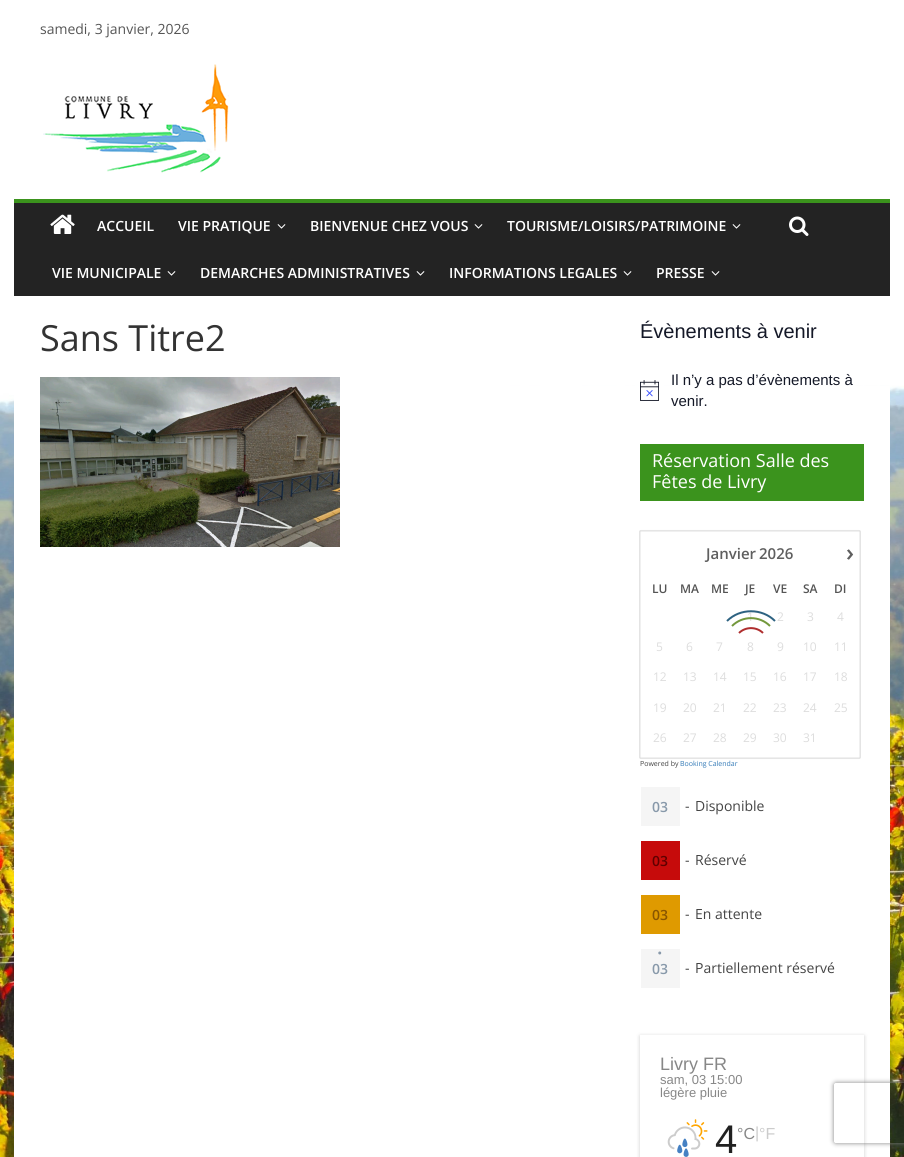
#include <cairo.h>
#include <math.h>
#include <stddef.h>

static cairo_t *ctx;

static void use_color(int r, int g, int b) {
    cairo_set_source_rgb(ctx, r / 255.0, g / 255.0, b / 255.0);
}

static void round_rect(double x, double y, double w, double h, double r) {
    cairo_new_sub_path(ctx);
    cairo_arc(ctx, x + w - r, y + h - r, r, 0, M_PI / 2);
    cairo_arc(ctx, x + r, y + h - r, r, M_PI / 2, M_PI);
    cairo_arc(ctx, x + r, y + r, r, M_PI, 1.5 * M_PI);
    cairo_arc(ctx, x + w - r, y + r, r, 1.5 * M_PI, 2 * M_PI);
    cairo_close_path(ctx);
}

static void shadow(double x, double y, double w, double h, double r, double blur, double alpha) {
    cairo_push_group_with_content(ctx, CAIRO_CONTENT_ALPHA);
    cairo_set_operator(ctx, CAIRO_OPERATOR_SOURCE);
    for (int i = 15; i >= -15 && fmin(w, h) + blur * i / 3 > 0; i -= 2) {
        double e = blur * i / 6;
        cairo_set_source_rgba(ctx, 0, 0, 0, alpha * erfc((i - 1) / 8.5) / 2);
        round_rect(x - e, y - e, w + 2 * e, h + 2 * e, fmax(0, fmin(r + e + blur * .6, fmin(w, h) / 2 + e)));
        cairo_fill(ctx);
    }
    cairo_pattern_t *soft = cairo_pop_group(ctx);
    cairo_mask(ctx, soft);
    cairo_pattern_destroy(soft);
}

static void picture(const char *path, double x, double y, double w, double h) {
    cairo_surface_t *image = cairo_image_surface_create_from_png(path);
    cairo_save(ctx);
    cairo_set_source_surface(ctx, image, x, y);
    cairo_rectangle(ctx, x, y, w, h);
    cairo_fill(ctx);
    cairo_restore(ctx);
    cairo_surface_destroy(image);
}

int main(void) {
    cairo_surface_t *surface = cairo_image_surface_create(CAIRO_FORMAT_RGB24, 904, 1157);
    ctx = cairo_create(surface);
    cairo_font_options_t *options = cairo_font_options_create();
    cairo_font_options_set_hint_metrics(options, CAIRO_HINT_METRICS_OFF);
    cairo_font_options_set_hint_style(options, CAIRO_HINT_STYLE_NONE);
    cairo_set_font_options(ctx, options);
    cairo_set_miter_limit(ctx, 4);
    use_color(255, 255, 255);
    cairo_paint(ctx);
    picture("img1.png", 0, 0, 904, 1157);
    cairo_select_font_face(ctx, "Open Sans", CAIRO_FONT_SLANT_NORMAL, CAIRO_FONT_WEIGHT_NORMAL);
    cairo_set_font_size(ctx, 14);
    use_color(85, 85, 85);
    cairo_move_to(ctx, 40, 34);
    cairo_show_text(ctx, "samedi, 3 janvier, 2026");
    picture("img2.png", 43, 64, 186, 109);
    use_color(35, 35, 35);
    cairo_rectangle(ctx, 14, 203, 876, 93);
    cairo_fill(ctx);
    use_color(59, 147, 29);
    cairo_rectangle(ctx, 14, 199, 876, 4);
    cairo_fill(ctx);
    picture("img3.png", 50, 214, 25, 20);
    picture("img4.png", 789, 216, 20, 20);
    cairo_select_font_face(ctx, "Open Sans SemiBold", CAIRO_FONT_SLANT_NORMAL, CAIRO_FONT_WEIGHT_NORMAL);
    use_color(255, 255, 255);
    cairo_move_to(ctx, 97, 231);
    cairo_show_text(ctx, "ACCUEIL");
    cairo_move_to(ctx, 178, 231);
    cairo_show_text(ctx, "VIE PRATIQUE");
    picture("img5.png", 277, 224, 9, 5);
    cairo_move_to(ctx, 310, 231);
    cairo_show_text(ctx, "BIENVENUE CHEZ VOUS");
    picture("img5.png", 474, 224, 9, 5);
    cairo_move_to(ctx, 507, 231);
    cairo_show_text(ctx, "TOURISME/LOISIRS/PATRIMOINE");
    picture("img5.png", 732, 224, 9, 5);
    cairo_move_to(ctx, 52, 278);
    cairo_show_text(ctx, "VIE MUNICIPALE");
    picture("img5.png", 167, 271, 9, 5);
    cairo_move_to(ctx, 200, 278);
    cairo_show_text(ctx, "DEMARCHES ADMINISTRATIVES");
    picture("img5.png", 416, 271, 9, 5);
    cairo_move_to(ctx, 449, 278);
    cairo_show_text(ctx, "INFORMATIONS LEGALES");
    picture("img5.png", 623, 271, 9, 5);
    cairo_move_to(ctx, 656, 278);
    cairo_show_text(ctx, "PRESSE");
    picture("img5.png", 711, 271, 9, 5);
    cairo_rectangle(ctx, 14, 386, 876, 771);
    cairo_fill(ctx);
    cairo_select_font_face(ctx, "Open Sans", CAIRO_FONT_SLANT_NORMAL, CAIRO_FONT_WEIGHT_NORMAL);
    cairo_set_font_size(ctx, 36);
    use_color(51, 51, 51);
    cairo_move_to(ctx, 40, 351);
    cairo_show_text(ctx, "Sans Titre2");
    picture("img6.png", 40, 377, 300, 170);
    cairo_select_font_face(ctx, "Liberation Sans", CAIRO_FONT_SLANT_NORMAL, CAIRO_FONT_WEIGHT_NORMAL);
    cairo_set_font_size(ctx, 20);
    use_color(20, 24, 39);
    cairo_move_to(ctx, 640, 338);
    cairo_show_text(ctx, "Évènements à venir");
    picture("img7.png", 640, 380, 19, 21);
    cairo_set_font_size(ctx, 15);
    cairo_move_to(ctx, 671, 385);
    cairo_show_text(ctx, "Il n’y a pas d’évènements à");
    cairo_move_to(ctx, 671, 406);
    cairo_show_text(ctx, "venir.");
    use_color(59, 147, 29);
    cairo_rectangle(ctx, 640, 444, 224, 57);
    cairo_fill(ctx);
    cairo_select_font_face(ctx, "Open Sans", CAIRO_FONT_SLANT_NORMAL, CAIRO_FONT_WEIGHT_NORMAL);
    cairo_set_font_size(ctx, 18);
    use_color(255, 255, 255);
    cairo_move_to(ctx, 652, 467);
    cairo_show_text(ctx, "Réservation Salle des");
    cairo_move_to(ctx, 652, 488);
    cairo_show_text(ctx, "Fêtes de Livry");
    use_color(112, 112, 112);
    shadow(640, 531, 220, 227, 0, 0.5, 1);
    use_color(255, 255, 255);
    shadow(640, 531, 220, 227, 0, 0.5, 1);
    cairo_select_font_face(ctx, "Open Sans SemiBold", CAIRO_FONT_SLANT_NORMAL, CAIRO_FONT_WEIGHT_NORMAL);
    cairo_set_font_size(ctx, 15);
    use_color(95, 95, 95);
    cairo_move_to(ctx, 706, 559);
    cairo_show_text(ctx, "Janvier");
    cairo_move_to(ctx, 759, 559);
    cairo_show_text(ctx, "2026");
    cairo_set_font_size(ctx, 12);
    use_color(85, 85, 85);
    cairo_move_to(ctx, 652, 593);
    cairo_show_text(ctx, "LU");
    cairo_move_to(ctx, 680, 593);
    cairo_show_text(ctx, "MA");
    cairo_move_to(ctx, 711, 593);
    cairo_show_text(ctx, "ME");
    cairo_move_to(ctx, 745, 593);
    cairo_show_text(ctx, "JE");
    cairo_move_to(ctx, 773, 593);
    cairo_show_text(ctx, "VE");
    cairo_move_to(ctx, 803, 593);
    cairo_show_text(ctx, "SA");
    cairo_move_to(ctx, 834, 593);
    cairo_show_text(ctx, "DI");
    cairo_select_font_face(ctx, "Open Sans", CAIRO_FONT_SLANT_NORMAL, CAIRO_FONT_WEIGHT_NORMAL);
    use_color(221, 221, 221);
    cairo_move_to(ctx, 747, 621);
    cairo_show_text(ctx, "1");
    cairo_move_to(ctx, 777, 621);
    cairo_show_text(ctx, "2");
    cairo_move_to(ctx, 807, 621);
    cairo_show_text(ctx, "3");
    cairo_move_to(ctx, 837, 621);
    cairo_show_text(ctx, "4");
    cairo_move_to(ctx, 656, 651);
    cairo_show_text(ctx, "5");
    cairo_move_to(ctx, 686, 651);
    cairo_show_text(ctx, "6");
    cairo_move_to(ctx, 716, 651);
    cairo_show_text(ctx, "7");
    cairo_move_to(ctx, 747, 651);
    cairo_show_text(ctx, "8");
    cairo_move_to(ctx, 777, 651);
    cairo_show_text(ctx, "9");
    cairo_move_to(ctx, 803, 651);
    cairo_show_text(ctx, "10");
    cairo_move_to(ctx, 834, 651);
    cairo_show_text(ctx, "11");
    cairo_move_to(ctx, 653, 681);
    cairo_show_text(ctx, "12");
    cairo_move_to(ctx, 683, 681);
    cairo_show_text(ctx, "13");
    cairo_move_to(ctx, 713, 681);
    cairo_show_text(ctx, "14");
    cairo_move_to(ctx, 743, 681);
    cairo_show_text(ctx, "15");
    cairo_move_to(ctx, 773, 681);
    cairo_show_text(ctx, "16");
    cairo_move_to(ctx, 803, 681);
    cairo_show_text(ctx, "17");
    cairo_move_to(ctx, 834, 681);
    cairo_show_text(ctx, "18");
    cairo_move_to(ctx, 653, 712);
    cairo_show_text(ctx, "19");
    cairo_move_to(ctx, 683, 712);
    cairo_show_text(ctx, "20");
    cairo_move_to(ctx, 713, 712);
    cairo_show_text(ctx, "21");
    cairo_move_to(ctx, 743, 712);
    cairo_show_text(ctx, "22");
    cairo_move_to(ctx, 773, 712);
    cairo_show_text(ctx, "23");
    cairo_move_to(ctx, 803, 712);
    cairo_show_text(ctx, "24");
    cairo_move_to(ctx, 834, 712);
    cairo_show_text(ctx, "25");
    cairo_move_to(ctx, 653, 742);
    cairo_show_text(ctx, "26");
    cairo_move_to(ctx, 683, 742);
    cairo_show_text(ctx, "27");
    cairo_move_to(ctx, 713, 742);
    cairo_show_text(ctx, "28");
    cairo_move_to(ctx, 743, 742);
    cairo_show_text(ctx, "29");
    cairo_move_to(ctx, 773, 742);
    cairo_show_text(ctx, "30");
    cairo_move_to(ctx, 803, 742);
    cairo_show_text(ctx, "31");
    cairo_select_font_face(ctx, "Open Sans SemiBold", CAIRO_FONT_SLANT_NORMAL, CAIRO_FONT_WEIGHT_NORMAL);
    cairo_set_font_size(ctx, 24);
    use_color(95, 95, 95);
    cairo_move_to(ctx, 846, 561);
    cairo_show_text(ctx, "›");
    cairo_new_path(ctx);
    cairo_move_to(ctx, 727, 621);
    cairo_curve_to(ctx, 740, 608, 762, 608, 775, 621);
    use_color(45, 98, 129);
    cairo_stroke(ctx);
    cairo_new_path(ctx);
    cairo_move_to(ctx, 732, 626);
    cairo_curve_to(ctx, 742.5, 615.5, 759.5, 615.5, 770, 626);
    use_color(115, 152, 60);
    cairo_stroke(ctx);
    cairo_new_path(ctx);
    cairo_move_to(ctx, 739, 633);
    cairo_curve_to(ctx, 745.5, 626.5, 756.5, 626.5, 763, 633);
    use_color(175, 46, 46);
    cairo_stroke(ctx);
    cairo_select_font_face(ctx, "Open Sans", CAIRO_FONT_SLANT_NORMAL, CAIRO_FONT_WEIGHT_NORMAL);
    cairo_set_font_size(ctx, 7);
    use_color(68, 68, 68);
    cairo_move_to(ctx, 640, 766);
    cairo_show_text(ctx, "Powered by");
    use_color(51, 122, 183);
    cairo_move_to(ctx, 680, 766);
    cairo_show_text(ctx, "Booking Calendar");
    use_color(245, 245, 245);
    cairo_rectangle(ctx, 641, 787, 39, 39);
    cairo_fill(ctx);
    cairo_select_font_face(ctx, "Open Sans SemiBold", CAIRO_FONT_SLANT_NORMAL, CAIRO_FONT_WEIGHT_NORMAL);
    cairo_set_font_size(ctx, 14);
    use_color(136, 153, 170);
    cairo_move_to(ctx, 652, 812);
    cairo_show_text(ctx, "03");
    cairo_select_font_face(ctx, "Open Sans", CAIRO_FONT_SLANT_NORMAL, CAIRO_FONT_WEIGHT_NORMAL);
    use_color(68, 68, 68);
    cairo_move_to(ctx, 685, 811);
    cairo_show_text(ctx, "-");
    cairo_move_to(ctx, 695, 811);
    cairo_show_text(ctx, "Disponible");
    use_color(198, 11, 11);
    cairo_rectangle(ctx, 641, 841, 39, 39);
    cairo_fill(ctx);
    cairo_select_font_face(ctx, "Open Sans SemiBold", CAIRO_FONT_SLANT_NORMAL, CAIRO_FONT_WEIGHT_NORMAL);
    use_color(95, 0, 0);
    cairo_move_to(ctx, 652, 866);
    cairo_show_text(ctx, "03");
    cairo_select_font_face(ctx, "Open Sans", CAIRO_FONT_SLANT_NORMAL, CAIRO_FONT_WEIGHT_NORMAL);
    use_color(68, 68, 68);
    cairo_move_to(ctx, 685, 865);
    cairo_show_text(ctx, "-");
    cairo_move_to(ctx, 695, 865);
    cairo_show_text(ctx, "Réservé");
    use_color(223, 154, 0);
    cairo_rectangle(ctx, 641, 895, 39, 39);
    cairo_fill(ctx);
    cairo_select_font_face(ctx, "Open Sans SemiBold", CAIRO_FONT_SLANT_NORMAL, CAIRO_FONT_WEIGHT_NORMAL);
    use_color(136, 85, 0);
    cairo_move_to(ctx, 652, 920);
    cairo_show_text(ctx, "03");
    cairo_select_font_face(ctx, "Open Sans", CAIRO_FONT_SLANT_NORMAL, CAIRO_FONT_WEIGHT_NORMAL);
    use_color(68, 68, 68);
    cairo_move_to(ctx, 685, 919);
    cairo_show_text(ctx, "-");
    cairo_move_to(ctx, 695, 919);
    cairo_show_text(ctx, "En attente");
    use_color(245, 245, 245);
    cairo_rectangle(ctx, 641, 949, 39, 39);
    cairo_fill(ctx);
    cairo_select_font_face(ctx, "Open Sans SemiBold", CAIRO_FONT_SLANT_NORMAL, CAIRO_FONT_WEIGHT_NORMAL);
    cairo_set_font_size(ctx, 20);
    use_color(136, 153, 170);
    cairo_move_to(ctx, 657, 960);
    cairo_show_text(ctx, "·");
    cairo_set_font_size(ctx, 14);
    cairo_move_to(ctx, 652, 974);
    cairo_show_text(ctx, "03");
    cairo_select_font_face(ctx, "Open Sans", CAIRO_FONT_SLANT_NORMAL, CAIRO_FONT_WEIGHT_NORMAL);
    use_color(68, 68, 68);
    cairo_move_to(ctx, 685, 973);
    cairo_show_text(ctx, "-");
    cairo_move_to(ctx, 695, 973);
    cairo_show_text(ctx, "Partiellement réservé");
    cairo_save(ctx);
    cairo_set_fill_rule(ctx, CAIRO_FILL_RULE_EVEN_ODD);
    cairo_new_path(ctx);
    cairo_move_to(ctx, 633, 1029);
    cairo_line_to(ctx, 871, 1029);
    cairo_line_to(ctx, 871, 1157);
    cairo_line_to(ctx, 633, 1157);
    cairo_close_path(ctx);
    cairo_move_to(ctx, 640, 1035);
    cairo_line_to(ctx, 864, 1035);
    cairo_line_to(ctx, 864, 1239);
    cairo_line_to(ctx, 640, 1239);
    cairo_close_path(ctx);
    cairo_clip(ctx);
    use_color(0, 0, 0);
    shadow(640, 1036, 224, 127, 0, 2, 0.2);
    cairo_restore(ctx);
    cairo_select_font_face(ctx, "Liberation Sans", CAIRO_FONT_SLANT_NORMAL, CAIRO_FONT_WEIGHT_NORMAL);
    cairo_set_font_size(ctx, 18);
    use_color(135, 135, 135);
    cairo_move_to(ctx, 660, 1070);
    cairo_show_text(ctx, "Livry FR");
    cairo_set_font_size(ctx, 13);
    cairo_move_to(ctx, 660, 1084);
    cairo_show_text(ctx, "sam, 03 15:00");
    cairo_move_to(ctx, 660, 1097);
    cairo_show_text(ctx, "légère pluie");
    picture("img10.png", 667, 1126, 34, 24);
    picture("img9.png", 677, 1138, 12, 19);
    picture("img8.png", 686, 1119, 22, 21);
    cairo_set_font_size(ctx, 40);
    use_color(33, 33, 33);
    cairo_move_to(ctx, 715, 1153);
    cairo_show_text(ctx, "4");
    cairo_set_font_size(ctx, 16);
    use_color(135, 135, 135);
    cairo_move_to(ctx, 737, 1139);
    cairo_show_text(ctx, "°C");
    use_color(204, 204, 204);
    cairo_move_to(ctx, 755, 1138);
    cairo_show_text(ctx, "|");
    cairo_move_to(ctx, 759, 1139);
    cairo_show_text(ctx, "°F");
    cairo_save(ctx);
    cairo_set_fill_rule(ctx, CAIRO_FILL_RULE_EVEN_ODD);
    cairo_new_path(ctx);
    cairo_move_to(ctx, 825, 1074);
    cairo_line_to(ctx, 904, 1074);
    cairo_line_to(ctx, 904, 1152);
    cairo_line_to(ctx, 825, 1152);
    cairo_close_path(ctx);
    cairo_move_to(ctx, 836, 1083);
    cairo_line_to(ctx, 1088, 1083);
    cairo_curve_to(ctx, 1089, 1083, 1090, 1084, 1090, 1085);
    cairo_line_to(ctx, 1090, 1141);
    cairo_curve_to(ctx, 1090, 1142, 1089, 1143, 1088, 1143);
    cairo_line_to(ctx, 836, 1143);
    cairo_curve_to(ctx, 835, 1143, 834, 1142, 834, 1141);
    cairo_line_to(ctx, 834, 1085);
    cairo_curve_to(ctx, 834, 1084, 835, 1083, 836, 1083);
    cairo_close_path(ctx);
    cairo_clip(ctx);
    use_color(128, 128, 128);
    shadow(834, 1083, 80, 60, 2, 2.5, 1);
    cairo_restore(ctx);
    cairo_surface_write_to_png(surface, "result.png");
    cairo_font_options_destroy(options);
    cairo_destroy(ctx);
    cairo_surface_destroy(surface);
    return 0;
}
